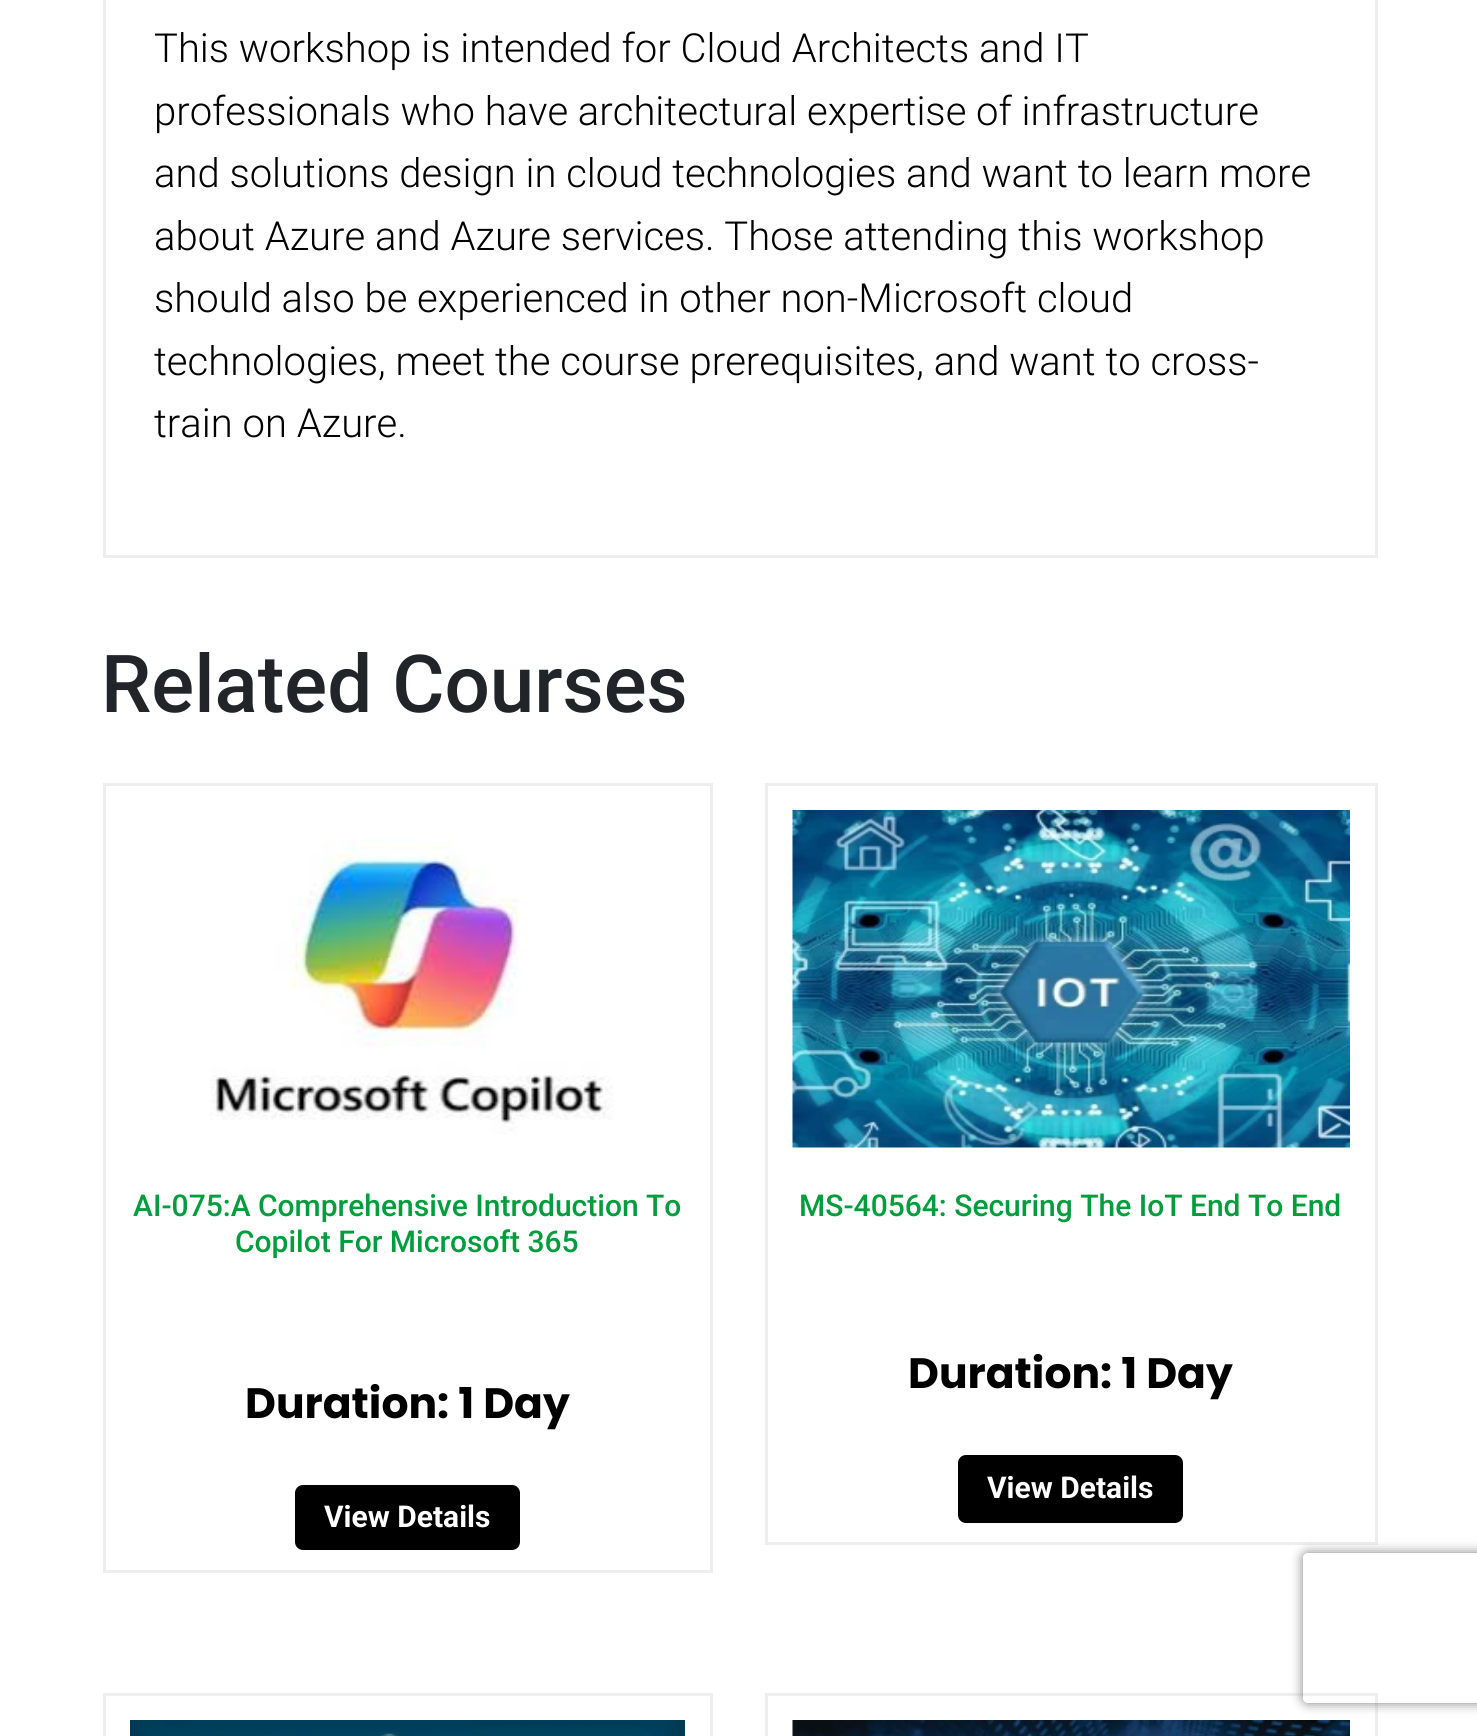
#include <cairo.h>
#include <math.h>
#include <stddef.h>

static cairo_t *ctx;

static void use_color(int r, int g, int b) {
    cairo_set_source_rgb(ctx, r / 255.0, g / 255.0, b / 255.0);
}

static void round_rect(double x, double y, double w, double h, double r) {
    cairo_new_sub_path(ctx);
    cairo_arc(ctx, x + w - r, y + h - r, r, 0, M_PI / 2);
    cairo_arc(ctx, x + r, y + h - r, r, M_PI / 2, M_PI);
    cairo_arc(ctx, x + r, y + r, r, M_PI, 1.5 * M_PI);
    cairo_arc(ctx, x + w - r, y + r, r, 1.5 * M_PI, 2 * M_PI);
    cairo_close_path(ctx);
}

static void shadow(double x, double y, double w, double h, double r, double blur, double alpha) {
    cairo_push_group_with_content(ctx, CAIRO_CONTENT_ALPHA);
    cairo_set_operator(ctx, CAIRO_OPERATOR_SOURCE);
    for (int i = 15; i >= -15 && fmin(w, h) + blur * i / 3 > 0; i -= 2) {
        double e = blur * i / 6;
        cairo_set_source_rgba(ctx, 0, 0, 0, alpha * erfc((i - 1) / 8.5) / 2);
        round_rect(x - e, y - e, w + 2 * e, h + 2 * e, fmax(0, fmin(r + e + blur * .6, fmin(w, h) / 2 + e)));
        cairo_fill(ctx);
    }
    cairo_pattern_t *soft = cairo_pop_group(ctx);
    cairo_mask(ctx, soft);
    cairo_pattern_destroy(soft);
}

static void picture(const char *path, double x, double y, double w, double h) {
    cairo_surface_t *image = cairo_image_surface_create_from_png(path);
    cairo_save(ctx);
    cairo_set_source_surface(ctx, image, x, y);
    cairo_rectangle(ctx, x, y, w, h);
    cairo_fill(ctx);
    cairo_restore(ctx);
    cairo_surface_destroy(image);
}

int main(void) {
    cairo_surface_t *surface = cairo_image_surface_create(CAIRO_FORMAT_RGB24, 1477, 1736);
    ctx = cairo_create(surface);
    cairo_font_options_t *options = cairo_font_options_create();
    cairo_font_options_set_hint_metrics(options, CAIRO_HINT_METRICS_OFF);
    cairo_font_options_set_hint_style(options, CAIRO_HINT_STYLE_NONE);
    cairo_set_font_options(ctx, options);
    cairo_set_miter_limit(ctx, 4);
    use_color(255, 255, 255);
    cairo_paint(ctx);
    cairo_rectangle(ctx, 104.5, -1.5, 1272, 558);
    use_color(238, 238, 238);
    cairo_set_line_width(ctx, 3);
    cairo_stroke(ctx);
    cairo_select_font_face(ctx, "Roboto Light", CAIRO_FONT_SLANT_NORMAL, CAIRO_FONT_WEIGHT_NORMAL);
    cairo_set_font_size(ctx, 40);
    use_color(0, 0, 0);
    cairo_move_to(ctx, 154, 62);
    cairo_show_text(ctx, "This workshop is intended for Cloud Architects and IT");
    cairo_move_to(ctx, 154, 125);
    cairo_show_text(ctx, "professionals who have architectural expertise of infrastructure");
    cairo_move_to(ctx, 154, 187);
    cairo_show_text(ctx, "and solutions design in cloud technologies and want to learn more");
    cairo_move_to(ctx, 154, 250);
    cairo_show_text(ctx, "about Azure and Azure services. Those attending this workshop");
    cairo_move_to(ctx, 154, 312);
    cairo_show_text(ctx, "should also be experienced in other non-Microsoft cloud");
    cairo_move_to(ctx, 154, 375);
    cairo_show_text(ctx, "technologies, meet the course prerequisites, and want to cross-");
    cairo_move_to(ctx, 154, 437);
    cairo_show_text(ctx, "train on Azure.");
    cairo_select_font_face(ctx, "Roboto Medium", CAIRO_FONT_SLANT_NORMAL, CAIRO_FONT_WEIGHT_NORMAL);
    cairo_set_font_size(ctx, 80);
    use_color(33, 37, 41);
    cairo_move_to(ctx, 101, 712);
    cairo_show_text(ctx, "Related Courses");
    cairo_rectangle(ctx, 104.5, 784.5, 607, 787);
    use_color(238, 238, 238);
    cairo_stroke(ctx);
    picture("img1.png", 210, 839, 404, 295);
    cairo_set_font_size(ctx, 30);
    use_color(0, 157, 60);
    cairo_move_to(ctx, 133, 1216);
    cairo_show_text(ctx, "AI-075:A Comprehensive Introduction To");
    cairo_move_to(ctx, 235, 1252);
    cairo_show_text(ctx, "Copilot For Microsoft 365");
    cairo_select_font_face(ctx, "Poppins", CAIRO_FONT_SLANT_NORMAL, CAIRO_FONT_WEIGHT_BOLD);
    cairo_set_font_size(ctx, 42.5);
    use_color(0, 0, 0);
    cairo_move_to(ctx, 245, 1418);
    cairo_show_text(ctx, "Duration: 1 Day");
    round_rect(295, 1485, 225, 65, 8);
    cairo_fill(ctx);
    cairo_select_font_face(ctx, "Roboto", CAIRO_FONT_SLANT_NORMAL, CAIRO_FONT_WEIGHT_BOLD);
    cairo_set_font_size(ctx, 30);
    use_color(255, 255, 255);
    cairo_move_to(ctx, 324, 1527);
    cairo_show_text(ctx, "View Details");
    cairo_rectangle(ctx, 766.5, 784.5, 610, 759);
    use_color(238, 238, 238);
    cairo_stroke(ctx);
    picture("img2.png", 792, 810, 558, 338);
    cairo_select_font_face(ctx, "Roboto Medium", CAIRO_FONT_SLANT_NORMAL, CAIRO_FONT_WEIGHT_NORMAL);
    use_color(0, 157, 60);
    cairo_move_to(ctx, 799, 1216);
    cairo_show_text(ctx, "MS-40564: Securing The IoT End To End");
    cairo_select_font_face(ctx, "Poppins", CAIRO_FONT_SLANT_NORMAL, CAIRO_FONT_WEIGHT_BOLD);
    cairo_set_font_size(ctx, 42.5);
    use_color(0, 0, 0);
    cairo_move_to(ctx, 908, 1388);
    cairo_show_text(ctx, "Duration: 1 Day");
    round_rect(958, 1455, 225, 68, 8);
    cairo_fill(ctx);
    cairo_select_font_face(ctx, "Roboto", CAIRO_FONT_SLANT_NORMAL, CAIRO_FONT_WEIGHT_BOLD);
    cairo_set_font_size(ctx, 30);
    use_color(255, 255, 255);
    cairo_move_to(ctx, 987, 1498);
    cairo_show_text(ctx, "View Details");
    cairo_rectangle(ctx, 104.5, 1694.5, 607, 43);
    use_color(238, 238, 238);
    cairo_stroke(ctx);
    picture("img3.png", 130, 1720, 555, 16);
    cairo_rectangle(ctx, 766.5, 1694.5, 610, 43);
    cairo_stroke(ctx);
    picture("img4.png", 792, 1720, 558, 16);
    cairo_save(ctx);
    cairo_set_fill_rule(ctx, CAIRO_FILL_RULE_EVEN_ODD);
    cairo_new_path(ctx);
    cairo_move_to(ctx, 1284, 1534);
    cairo_line_to(ctx, 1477, 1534);
    cairo_line_to(ctx, 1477, 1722);
    cairo_line_to(ctx, 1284, 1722);
    cairo_close_path(ctx);
    cairo_move_to(ctx, 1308, 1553);
    cairo_line_to(ctx, 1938, 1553);
    cairo_curve_to(ctx, 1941, 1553, 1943, 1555, 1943, 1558);
    cairo_line_to(ctx, 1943, 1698);
    cairo_curve_to(ctx, 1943, 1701, 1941, 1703, 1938, 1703);
    cairo_line_to(ctx, 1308, 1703);
    cairo_curve_to(ctx, 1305, 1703, 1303, 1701, 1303, 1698);
    cairo_line_to(ctx, 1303, 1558);
    cairo_curve_to(ctx, 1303, 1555, 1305, 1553, 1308, 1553);
    cairo_close_path(ctx);
    cairo_clip(ctx);
    use_color(128, 128, 128);
    shadow(1303, 1553, 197, 150, 5, 6, 1);
    cairo_restore(ctx);
    cairo_surface_write_to_png(surface, "result.png");
    cairo_font_options_destroy(options);
    cairo_destroy(ctx);
    cairo_surface_destroy(surface);
    return 0;
}
